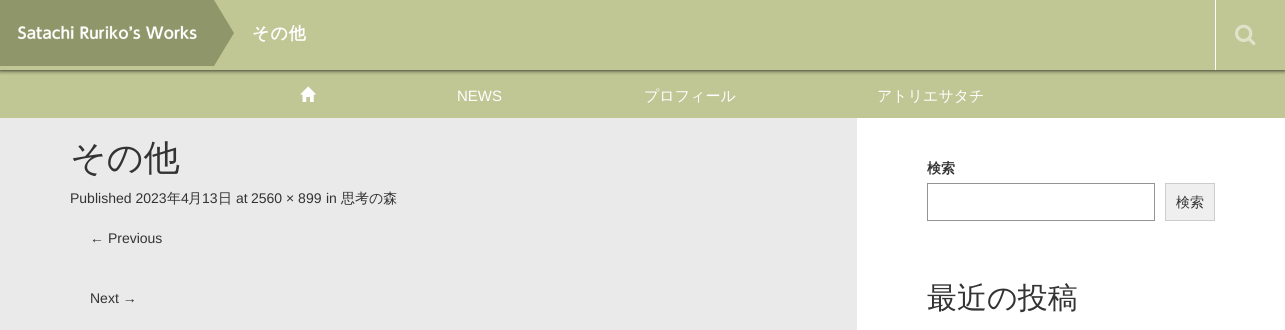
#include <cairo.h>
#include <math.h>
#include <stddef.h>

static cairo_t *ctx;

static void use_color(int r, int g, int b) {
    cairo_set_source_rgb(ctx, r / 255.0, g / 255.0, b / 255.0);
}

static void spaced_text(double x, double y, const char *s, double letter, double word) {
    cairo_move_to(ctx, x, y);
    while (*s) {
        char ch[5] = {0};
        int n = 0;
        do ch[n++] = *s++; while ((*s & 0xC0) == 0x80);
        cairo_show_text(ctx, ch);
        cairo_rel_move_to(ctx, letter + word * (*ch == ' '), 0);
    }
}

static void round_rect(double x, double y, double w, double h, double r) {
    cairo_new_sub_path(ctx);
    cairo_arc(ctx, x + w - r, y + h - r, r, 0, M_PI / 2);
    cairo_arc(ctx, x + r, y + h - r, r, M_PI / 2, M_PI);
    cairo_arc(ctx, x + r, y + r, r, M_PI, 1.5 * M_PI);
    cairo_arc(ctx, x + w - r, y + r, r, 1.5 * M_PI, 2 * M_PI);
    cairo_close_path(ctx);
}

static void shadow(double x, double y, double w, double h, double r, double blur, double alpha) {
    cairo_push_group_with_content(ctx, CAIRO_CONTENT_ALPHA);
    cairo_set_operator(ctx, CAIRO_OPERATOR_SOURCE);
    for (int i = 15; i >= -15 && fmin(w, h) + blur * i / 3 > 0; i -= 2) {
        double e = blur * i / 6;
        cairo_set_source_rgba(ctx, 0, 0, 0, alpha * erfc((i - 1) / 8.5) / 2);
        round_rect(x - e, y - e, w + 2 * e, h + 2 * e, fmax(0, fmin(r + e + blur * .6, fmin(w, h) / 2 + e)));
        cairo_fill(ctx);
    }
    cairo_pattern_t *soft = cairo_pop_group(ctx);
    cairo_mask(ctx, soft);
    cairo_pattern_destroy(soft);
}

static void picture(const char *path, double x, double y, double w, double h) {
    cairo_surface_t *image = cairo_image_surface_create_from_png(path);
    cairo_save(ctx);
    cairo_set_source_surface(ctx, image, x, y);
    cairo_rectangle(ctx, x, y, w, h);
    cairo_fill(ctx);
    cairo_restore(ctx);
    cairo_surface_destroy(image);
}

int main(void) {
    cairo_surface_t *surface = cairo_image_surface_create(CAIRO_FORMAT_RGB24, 1285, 330);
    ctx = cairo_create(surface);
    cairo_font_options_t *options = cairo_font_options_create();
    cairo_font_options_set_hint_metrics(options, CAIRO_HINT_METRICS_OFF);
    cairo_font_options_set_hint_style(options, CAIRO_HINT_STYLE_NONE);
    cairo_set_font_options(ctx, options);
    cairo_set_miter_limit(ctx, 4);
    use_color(234, 234, 234);
    cairo_paint(ctx);
    use_color(192, 199, 149);
    cairo_rectangle(ctx, 0, 0, 1285, 118);
    cairo_fill(ctx);
    cairo_save(ctx);
    cairo_rectangle(ctx, 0, 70, 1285, 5);
    cairo_clip(ctx);
    use_color(0, 0, 0);
    shadow(0, 0, 1285, 70, 0, 2.5, 1);
    cairo_restore(ctx);
    use_color(143, 150, 105);
    cairo_rectangle(ctx, 0, 0, 214, 66);
    cairo_fill(ctx);
    picture("img1.png", 17, 25, 180, 15);
    cairo_new_path(ctx);
    cairo_move_to(ctx, 214, 66);
    cairo_line_to(ctx, 214, 0);
    cairo_line_to(ctx, 234, 33);
    cairo_close_path(ctx);
    cairo_fill(ctx);
    cairo_select_font_face(ctx, "WenQuanYi Zen Hei", CAIRO_FONT_SLANT_NORMAL, CAIRO_FONT_WEIGHT_BOLD);
    cairo_set_font_size(ctx, 17);
    use_color(255, 255, 255);
    spaced_text(252, 39, "その他", 1, 0);
    cairo_rectangle(ctx, 1215, 0, 1, 70);
    cairo_fill(ctx);
    picture("img2.png", 1235, 24, 21, 22);
    picture("img3.png", 300, 86, 16, 16);
    cairo_select_font_face(ctx, "Liberation Sans", CAIRO_FONT_SLANT_NORMAL, CAIRO_FONT_WEIGHT_NORMAL);
    cairo_set_font_size(ctx, 15);
    cairo_move_to(ctx, 457, 101);
    cairo_show_text(ctx, "NEWS");
    cairo_select_font_face(ctx, "WenQuanYi Zen Hei Medium", CAIRO_FONT_SLANT_NORMAL, CAIRO_FONT_WEIGHT_NORMAL);
    cairo_move_to(ctx, 644, 101);
    cairo_show_text(ctx, "プロフィール");
    cairo_move_to(ctx, 877, 101);
    cairo_show_text(ctx, "アトリエサタチ");
    cairo_set_font_size(ctx, 36);
    use_color(51, 51, 51);
    cairo_move_to(ctx, 70, 170);
    cairo_show_text(ctx, "その他");
    cairo_select_font_face(ctx, "Liberation Sans", CAIRO_FONT_SLANT_NORMAL, CAIRO_FONT_WEIGHT_NORMAL);
    cairo_set_font_size(ctx, 14);
    cairo_move_to(ctx, 70, 203);
    cairo_show_text(ctx, "Published 2023");
    cairo_select_font_face(ctx, "WenQuanYi Zen Hei Medium", CAIRO_FONT_SLANT_NORMAL, CAIRO_FONT_WEIGHT_NORMAL);
    cairo_move_to(ctx, 167, 203);
    cairo_show_text(ctx, "年");
    cairo_select_font_face(ctx, "Liberation Sans", CAIRO_FONT_SLANT_NORMAL, CAIRO_FONT_WEIGHT_NORMAL);
    cairo_move_to(ctx, 181, 203);
    cairo_show_text(ctx, "4");
    cairo_select_font_face(ctx, "WenQuanYi Zen Hei Medium", CAIRO_FONT_SLANT_NORMAL, CAIRO_FONT_WEIGHT_NORMAL);
    cairo_move_to(ctx, 188, 203);
    cairo_show_text(ctx, "月");
    cairo_select_font_face(ctx, "Liberation Sans", CAIRO_FONT_SLANT_NORMAL, CAIRO_FONT_WEIGHT_NORMAL);
    cairo_move_to(ctx, 202, 203);
    cairo_show_text(ctx, "13");
    cairo_select_font_face(ctx, "WenQuanYi Zen Hei Medium", CAIRO_FONT_SLANT_NORMAL, CAIRO_FONT_WEIGHT_NORMAL);
    cairo_move_to(ctx, 218, 203);
    cairo_show_text(ctx, "日");
    cairo_select_font_face(ctx, "Liberation Sans", CAIRO_FONT_SLANT_NORMAL, CAIRO_FONT_WEIGHT_NORMAL);
    cairo_move_to(ctx, 236, 203);
    cairo_show_text(ctx, "at");
    cairo_move_to(ctx, 251, 203);
    cairo_show_text(ctx, "2560 × 899");
    cairo_move_to(ctx, 326, 203);
    cairo_show_text(ctx, "in");
    cairo_select_font_face(ctx, "WenQuanYi Zen Hei Medium", CAIRO_FONT_SLANT_NORMAL, CAIRO_FONT_WEIGHT_NORMAL);
    cairo_move_to(ctx, 341, 203);
    cairo_show_text(ctx, "思考の森");
    cairo_select_font_face(ctx, "Liberation Sans", CAIRO_FONT_SLANT_NORMAL, CAIRO_FONT_WEIGHT_NORMAL);
    cairo_move_to(ctx, 90, 243);
    cairo_show_text(ctx, "← Previous");
    cairo_move_to(ctx, 90, 303);
    cairo_show_text(ctx, "Next →");
    use_color(255, 255, 255);
    cairo_rectangle(ctx, 857, 118, 428, 212);
    cairo_fill(ctx);
    cairo_select_font_face(ctx, "WenQuanYi Zen Hei", CAIRO_FONT_SLANT_NORMAL, CAIRO_FONT_WEIGHT_BOLD);
    use_color(51, 51, 51);
    cairo_move_to(ctx, 927, 173);
    cairo_show_text(ctx, "検索");
    cairo_rectangle(ctx, 927.5, 183.5, 227, 37);
    use_color(148, 148, 148);
    cairo_set_line_width(ctx, 1);
    cairo_stroke(ctx);
    use_color(239, 239, 239);
    cairo_rectangle(ctx, 1165.5, 183.5, 49, 37);
    cairo_fill_preserve(ctx);
    use_color(204, 204, 204);
    cairo_stroke(ctx);
    cairo_select_font_face(ctx, "WenQuanYi Zen Hei Medium", CAIRO_FONT_SLANT_NORMAL, CAIRO_FONT_WEIGHT_NORMAL);
    use_color(51, 51, 51);
    cairo_move_to(ctx, 1176, 207);
    cairo_show_text(ctx, "検索");
    cairo_set_font_size(ctx, 30);
    cairo_move_to(ctx, 927, 308);
    cairo_show_text(ctx, "最近の投稿");
    cairo_surface_write_to_png(surface, "result.png");
    cairo_font_options_destroy(options);
    cairo_destroy(ctx);
    cairo_surface_destroy(surface);
    return 0;
}
